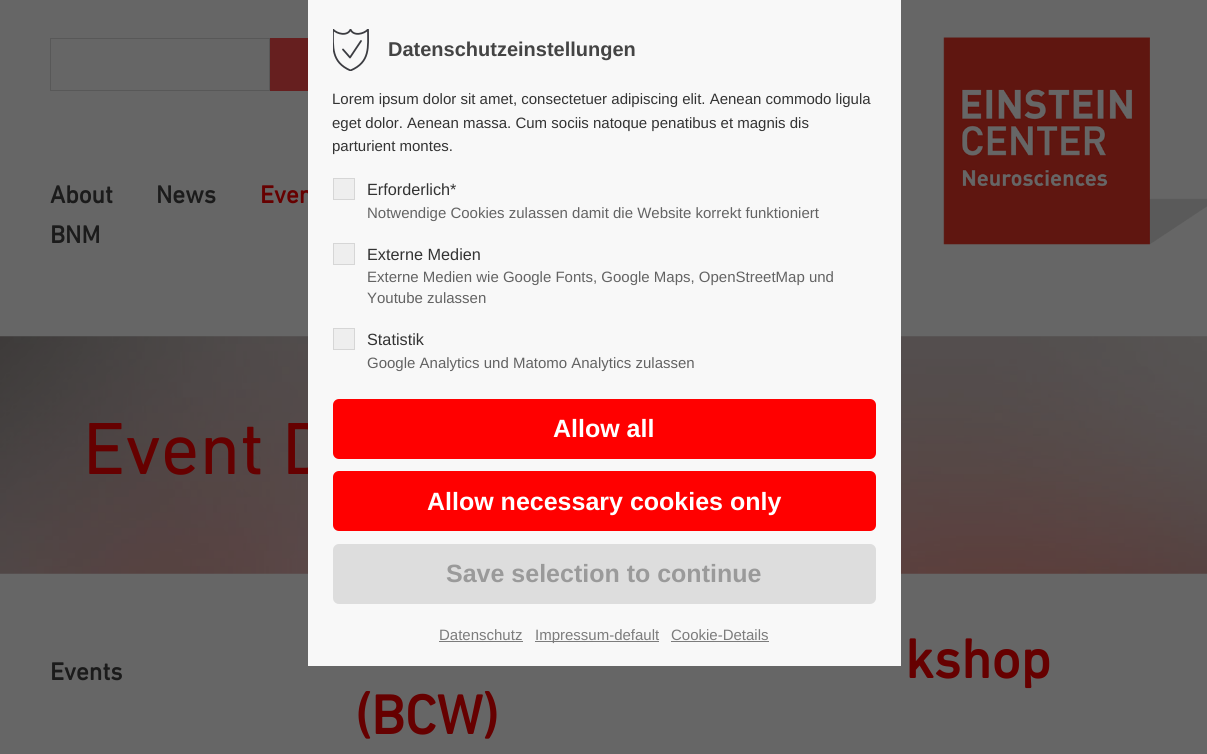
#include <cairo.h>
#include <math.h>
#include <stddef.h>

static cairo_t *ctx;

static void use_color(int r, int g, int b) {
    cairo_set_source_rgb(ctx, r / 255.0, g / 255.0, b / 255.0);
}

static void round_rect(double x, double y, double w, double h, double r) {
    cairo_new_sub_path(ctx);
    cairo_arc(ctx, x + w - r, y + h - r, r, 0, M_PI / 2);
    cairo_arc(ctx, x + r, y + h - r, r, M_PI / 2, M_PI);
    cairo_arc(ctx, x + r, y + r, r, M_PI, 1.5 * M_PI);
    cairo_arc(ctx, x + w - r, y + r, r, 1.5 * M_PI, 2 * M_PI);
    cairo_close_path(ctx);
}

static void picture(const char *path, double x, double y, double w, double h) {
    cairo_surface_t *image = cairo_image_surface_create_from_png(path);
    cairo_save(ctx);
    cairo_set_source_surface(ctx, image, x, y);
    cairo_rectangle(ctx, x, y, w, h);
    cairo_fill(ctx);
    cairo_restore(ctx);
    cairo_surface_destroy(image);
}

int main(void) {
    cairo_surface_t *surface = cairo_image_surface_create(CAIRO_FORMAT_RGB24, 1207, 754);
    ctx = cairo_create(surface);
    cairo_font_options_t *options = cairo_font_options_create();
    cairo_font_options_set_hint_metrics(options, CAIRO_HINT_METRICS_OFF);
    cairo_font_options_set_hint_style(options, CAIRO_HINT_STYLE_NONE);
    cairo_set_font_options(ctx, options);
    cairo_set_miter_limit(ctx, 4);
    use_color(102, 102, 102);
    cairo_paint(ctx);
    cairo_select_font_face(ctx, "DIN Next", CAIRO_FONT_SLANT_NORMAL, CAIRO_FONT_WEIGHT_BOLD);
    cairo_set_font_size(ctx, 25);
    use_color(102, 0, 0);
    cairo_move_to(ctx, 260, 203);
    cairo_show_text(ctx, "Even");
    picture("img2.png", 0, 336, 1207, 238);
    cairo_select_font_face(ctx, "DIN Next", CAIRO_FONT_SLANT_NORMAL, CAIRO_FONT_WEIGHT_NORMAL);
    cairo_set_font_size(ctx, 75);
    cairo_move_to(ctx, 83, 474);
    cairo_show_text(ctx, "Event D");
    use_color(248, 248, 248);
    cairo_rectangle(ctx, 308, 0, 593, 666);
    cairo_fill(ctx);
    cairo_save(ctx);
    cairo_rectangle(ctx, 333, 29, 37, 42);
    cairo_clip(ctx);
    cairo_new_path(ctx);
    cairo_move_to(ctx, 350.5, 70.5);
    cairo_curve_to(ctx, 331, 62, 333, 47, 333, 29.5);
    cairo_curve_to(ctx, 337, 34, 347.5, 36.5, 350.5, 29.5);
    cairo_curve_to(ctx, 353.5, 36.5, 364, 34, 368, 29.5);
    cairo_curve_to(ctx, 368, 47, 370.5, 62, 350.5, 70.5);
    cairo_close_path(ctx);
    use_color(59, 60, 65);
    cairo_set_line_width(ctx, 1.8);
    cairo_set_line_cap(ctx, CAIRO_LINE_CAP_ROUND);
    cairo_set_line_join(ctx, CAIRO_LINE_JOIN_ROUND);
    cairo_stroke(ctx);
    cairo_restore(ctx);
    cairo_new_path(ctx);
    cairo_move_to(ctx, 343, 49.5);
    cairo_line_to(ctx, 350, 57.5);
    cairo_line_to(ctx, 361, 41);
    use_color(59, 60, 65);
    cairo_set_line_width(ctx, 1.8);
    cairo_set_line_cap(ctx, CAIRO_LINE_CAP_ROUND);
    cairo_set_line_join(ctx, CAIRO_LINE_JOIN_ROUND);
    cairo_stroke(ctx);
    cairo_select_font_face(ctx, "Liberation Sans", CAIRO_FONT_SLANT_NORMAL, CAIRO_FONT_WEIGHT_BOLD);
    cairo_set_font_size(ctx, 20);
    use_color(68, 68, 68);
    cairo_move_to(ctx, 388, 56);
    cairo_show_text(ctx, "Datenschutzeinstellungen");
    cairo_select_font_face(ctx, "Liberation Sans", CAIRO_FONT_SLANT_NORMAL, CAIRO_FONT_WEIGHT_NORMAL);
    cairo_set_font_size(ctx, 15);
    use_color(51, 51, 51);
    cairo_move_to(ctx, 332, 104);
    cairo_show_text(ctx, "Lorem ipsum dolor sit amet, consectetuer adipiscing elit. Aenean commodo ligula");
    cairo_move_to(ctx, 332, 128);
    cairo_show_text(ctx, "eget dolor. Aenean massa. Cum sociis natoque penatibus et magnis dis");
    cairo_move_to(ctx, 332, 151);
    cairo_show_text(ctx, "parturient montes.");
    use_color(238, 238, 238);
    cairo_rectangle(ctx, 333.5, 178.5, 21, 21);
    cairo_fill_preserve(ctx);
    use_color(214, 214, 214);
    cairo_set_line_width(ctx, 1);
    cairo_set_line_cap(ctx, CAIRO_LINE_CAP_BUTT);
    cairo_set_line_join(ctx, CAIRO_LINE_JOIN_MITER);
    cairo_stroke(ctx);
    cairo_set_font_size(ctx, 16.25);
    use_color(51, 51, 51);
    cairo_move_to(ctx, 367, 195);
    cairo_show_text(ctx, "Erforderlich*");
    cairo_set_font_size(ctx, 15);
    use_color(99, 99, 99);
    cairo_move_to(ctx, 367, 218);
    cairo_show_text(ctx, "Notwendige Cookies zulassen damit die Website korrekt funktioniert");
    use_color(238, 238, 238);
    cairo_rectangle(ctx, 333.5, 243.5, 21, 21);
    cairo_fill_preserve(ctx);
    use_color(214, 214, 214);
    cairo_stroke(ctx);
    cairo_set_font_size(ctx, 16.25);
    use_color(51, 51, 51);
    cairo_move_to(ctx, 367, 260);
    cairo_show_text(ctx, "Externe Medien");
    cairo_set_font_size(ctx, 15);
    use_color(99, 99, 99);
    cairo_move_to(ctx, 367, 282);
    cairo_show_text(ctx, "Externe Medien wie Google Fonts, Google Maps, OpenStreetMap und");
    cairo_move_to(ctx, 367, 303);
    cairo_show_text(ctx, "Youtube zulassen");
    use_color(238, 238, 238);
    cairo_rectangle(ctx, 333.5, 328.5, 21, 21);
    cairo_fill_preserve(ctx);
    use_color(214, 214, 214);
    cairo_stroke(ctx);
    cairo_set_font_size(ctx, 16.25);
    use_color(51, 51, 51);
    cairo_move_to(ctx, 367, 345);
    cairo_show_text(ctx, "Statistik");
    cairo_set_font_size(ctx, 15);
    use_color(99, 99, 99);
    cairo_move_to(ctx, 367, 368);
    cairo_show_text(ctx, "Google Analytics und Matomo Analytics zulassen");
    use_color(255, 0, 0);
    round_rect(333, 399, 543, 60, 6);
    cairo_fill(ctx);
    cairo_select_font_face(ctx, "Liberation Sans", CAIRO_FONT_SLANT_NORMAL, CAIRO_FONT_WEIGHT_BOLD);
    cairo_set_font_size(ctx, 25);
    use_color(255, 255, 255);
    cairo_move_to(ctx, 553, 437);
    cairo_show_text(ctx, "Allow all");
    use_color(255, 0, 0);
    round_rect(333, 471, 543, 60, 6);
    cairo_fill(ctx);
    use_color(255, 255, 255);
    cairo_move_to(ctx, 427, 510);
    cairo_show_text(ctx, "Allow necessary cookies only");
    use_color(221, 221, 221);
    round_rect(333, 544, 543, 60, 6);
    cairo_fill(ctx);
    use_color(154, 154, 154);
    cairo_move_to(ctx, 446, 582);
    cairo_show_text(ctx, "Save selection to continue");
    cairo_select_font_face(ctx, "Liberation Sans", CAIRO_FONT_SLANT_NORMAL, CAIRO_FONT_WEIGHT_NORMAL);
    cairo_set_font_size(ctx, 15);
    use_color(124, 124, 124);
    cairo_move_to(ctx, 439, 640);
    cairo_show_text(ctx, "Datenschutz");
    cairo_rectangle(ctx, 439, 641, 84, 1);
    cairo_fill(ctx);
    cairo_rectangle(ctx, 535, 641, 124, 1);
    cairo_fill(ctx);
    cairo_move_to(ctx, 535, 640);
    cairo_show_text(ctx, "Impressum-default");
    cairo_move_to(ctx, 671, 640);
    cairo_show_text(ctx, "Cookie-Details");
    cairo_rectangle(ctx, 671, 641, 98, 1);
    cairo_fill(ctx);
    cairo_rectangle(ctx, 50.5, 38.5, 219, 52);
    use_color(88, 88, 88);
    cairo_stroke(ctx);
    use_color(102, 31, 31);
    cairo_rectangle(ctx, 270, 38, 38, 53);
    cairo_fill(ctx);
    picture("img1.png", 943, 37, 264, 208);
    cairo_select_font_face(ctx, "DIN Next", CAIRO_FONT_SLANT_NORMAL, CAIRO_FONT_WEIGHT_BOLD);
    cairo_set_font_size(ctx, 25);
    use_color(27, 27, 27);
    cairo_move_to(ctx, 50, 203);
    cairo_show_text(ctx, "About");
    cairo_move_to(ctx, 156, 203);
    cairo_show_text(ctx, "News");
    cairo_move_to(ctx, 50, 243);
    cairo_show_text(ctx, "BNM");
    cairo_move_to(ctx, 50, 680);
    cairo_show_text(ctx, "Events");
    cairo_set_font_size(ctx, 56);
    use_color(102, 0, 0);
    cairo_move_to(ctx, 905, 678);
    cairo_show_text(ctx, "kshop");
    cairo_move_to(ctx, 355, 734);
    cairo_show_text(ctx, "(BCW)");
    cairo_surface_write_to_png(surface, "result.png");
    cairo_font_options_destroy(options);
    cairo_destroy(ctx);
    cairo_surface_destroy(surface);
    return 0;
}
